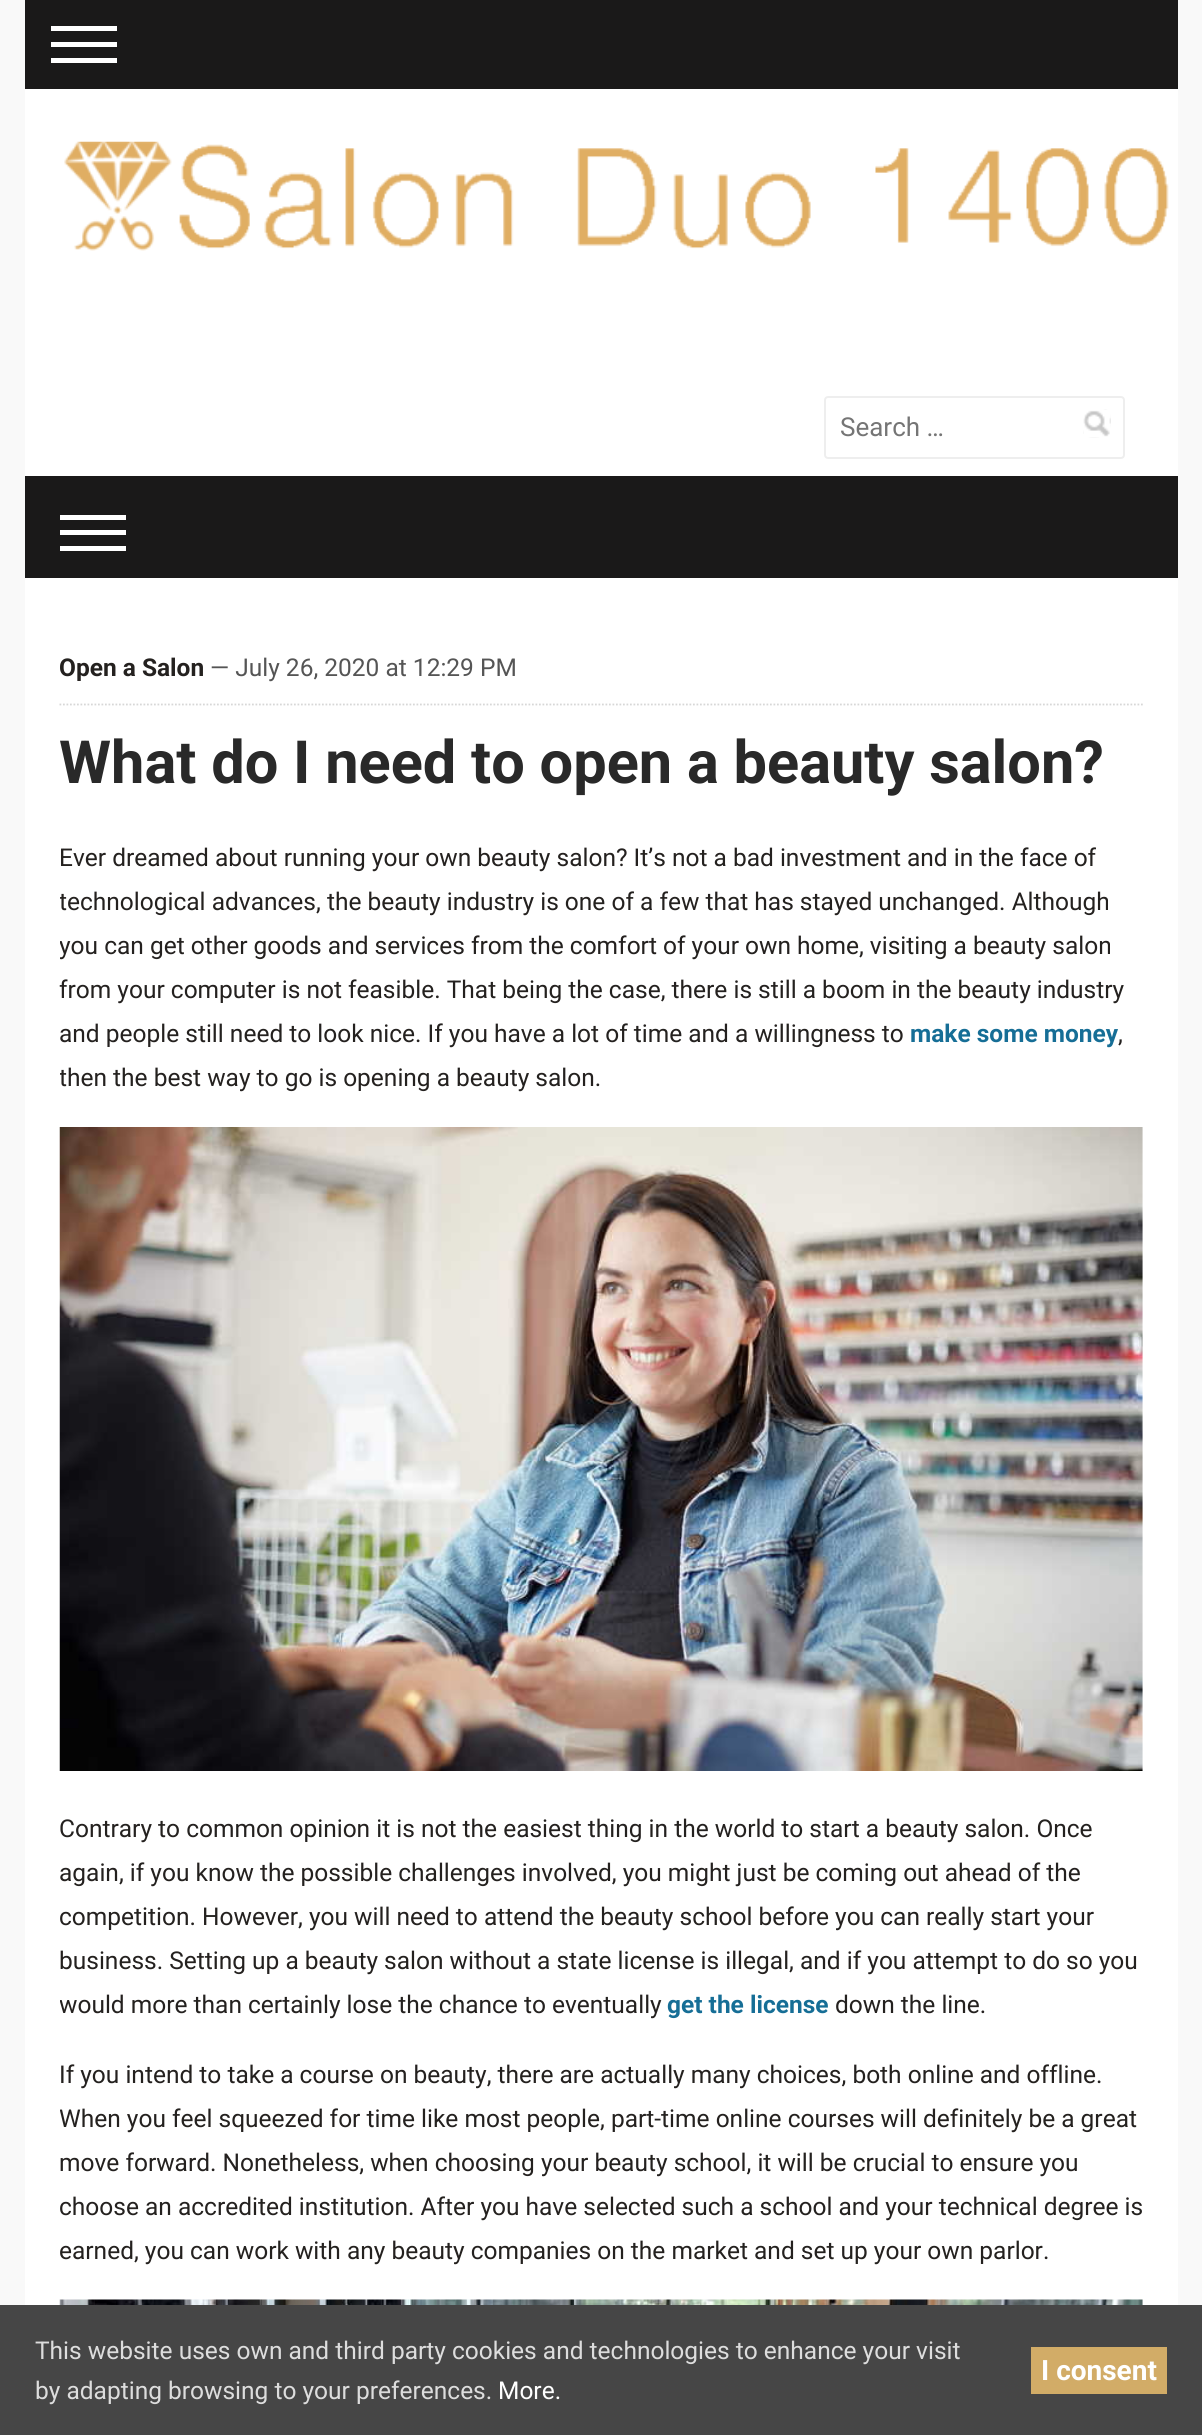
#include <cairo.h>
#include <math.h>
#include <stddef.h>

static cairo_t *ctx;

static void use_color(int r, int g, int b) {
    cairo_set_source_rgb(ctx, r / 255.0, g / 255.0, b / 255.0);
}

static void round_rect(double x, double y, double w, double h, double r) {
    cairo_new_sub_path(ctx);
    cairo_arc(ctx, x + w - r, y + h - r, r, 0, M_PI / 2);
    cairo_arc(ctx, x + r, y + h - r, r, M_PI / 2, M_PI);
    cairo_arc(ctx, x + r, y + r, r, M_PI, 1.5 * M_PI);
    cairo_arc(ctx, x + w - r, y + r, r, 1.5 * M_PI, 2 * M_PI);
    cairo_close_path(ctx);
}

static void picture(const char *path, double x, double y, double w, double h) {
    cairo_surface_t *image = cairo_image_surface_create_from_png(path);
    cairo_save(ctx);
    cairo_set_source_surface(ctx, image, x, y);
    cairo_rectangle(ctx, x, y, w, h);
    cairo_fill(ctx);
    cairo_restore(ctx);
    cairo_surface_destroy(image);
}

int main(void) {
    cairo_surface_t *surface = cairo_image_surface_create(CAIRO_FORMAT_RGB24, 1202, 2435);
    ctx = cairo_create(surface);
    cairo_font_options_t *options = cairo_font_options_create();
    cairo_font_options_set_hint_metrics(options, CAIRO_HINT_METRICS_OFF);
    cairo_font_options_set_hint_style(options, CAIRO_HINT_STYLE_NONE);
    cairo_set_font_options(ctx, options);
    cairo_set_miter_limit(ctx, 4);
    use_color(249, 249, 249);
    cairo_paint(ctx);
    use_color(255, 255, 255);
    cairo_rectangle(ctx, 25, 89, 1153, 2216);
    cairo_fill(ctx);
    use_color(26, 25, 25);
    cairo_rectangle(ctx, 25, 0, 1153, 89);
    cairo_fill(ctx);
    use_color(255, 255, 255);
    cairo_rectangle(ctx, 51, 26, 66, 5);
    cairo_fill(ctx);
    cairo_rectangle(ctx, 51, 42, 66, 5);
    cairo_fill(ctx);
    cairo_rectangle(ctx, 51, 58, 66, 5);
    cairo_fill(ctx);
    picture("img1.png", 64, 141, 1105, 110);
    round_rect(825, 397, 299, 61, 3);
    use_color(238, 238, 238);
    cairo_stroke(ctx);
    cairo_select_font_face(ctx, "Roboto", CAIRO_FONT_SLANT_NORMAL, CAIRO_FONT_WEIGHT_NORMAL);
    cairo_set_font_size(ctx, 26);
    use_color(117, 117, 117);
    cairo_move_to(ctx, 840, 436);
    cairo_show_text(ctx, "Search …");
    picture("img2.png", 1083, 409, 28, 29);
    use_color(26, 25, 25);
    cairo_rectangle(ctx, 25, 476, 1153, 102);
    cairo_fill(ctx);
    use_color(255, 255, 255);
    cairo_rectangle(ctx, 60, 515, 66, 5);
    cairo_fill(ctx);
    cairo_rectangle(ctx, 60, 530, 66, 5);
    cairo_fill(ctx);
    cairo_rectangle(ctx, 60, 546, 66, 5);
    cairo_fill(ctx);
    cairo_new_path(ctx);
    cairo_move_to(ctx, 59.5, 704.5);
    cairo_line_to(ctx, 1143, 704.5);
    use_color(215, 215, 215);
    cairo_set_line_width(ctx, 1.8);
    cairo_set_dash(ctx, (double[]){1.75, 1.75}, 2, 0);
    cairo_stroke(ctx);
    cairo_select_font_face(ctx, "Roboto", CAIRO_FONT_SLANT_NORMAL, CAIRO_FONT_WEIGHT_BOLD);
    cairo_set_font_size(ctx, 24.5);
    use_color(36, 33, 31);
    cairo_move_to(ctx, 59, 676);
    cairo_show_text(ctx, "Open a Salon");
    cairo_select_font_face(ctx, "Roboto", CAIRO_FONT_SLANT_NORMAL, CAIRO_FONT_WEIGHT_NORMAL);
    use_color(85, 85, 85);
    cairo_move_to(ctx, 210, 676);
    cairo_show_text(ctx, "— July 26, 2020 at 12:29 PM");
    cairo_select_font_face(ctx, "Roboto", CAIRO_FONT_SLANT_NORMAL, CAIRO_FONT_WEIGHT_BOLD);
    cairo_set_font_size(ctx, 59.5);
    use_color(41, 41, 41);
    cairo_move_to(ctx, 59, 783);
    cairo_show_text(ctx, "What do I need to open a beauty salon?");
    cairo_select_font_face(ctx, "Roboto", CAIRO_FONT_SLANT_NORMAL, CAIRO_FONT_WEIGHT_NORMAL);
    cairo_set_font_size(ctx, 24.5);
    use_color(36, 33, 31);
    cairo_move_to(ctx, 59, 866);
    cairo_show_text(ctx, "Ever dreamed about running your own beauty salon? It’s not a bad investment and in the face of");
    cairo_save(ctx);
    cairo_rectangle(ctx, 60, 837, 1083, 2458);
    cairo_clip(ctx);
    cairo_move_to(ctx, 59, 910);
    cairo_show_text(ctx, "technological advances, the beauty industry is one of a few that has stayed unchanged. Although");
    cairo_move_to(ctx, 59, 954);
    cairo_show_text(ctx, "you can get other goods and services from the comfort of your own home, visiting a beauty salon");
    cairo_restore(ctx);
    cairo_move_to(ctx, 59, 998);
    cairo_show_text(ctx, "from your computer is not feasible. That being the case, there is still a boom in the beauty industry");
    cairo_move_to(ctx, 59, 1042);
    cairo_show_text(ctx, "and people still need to look nice. If you have a lot of time and a willingness to");
    cairo_select_font_face(ctx, "Roboto", CAIRO_FONT_SLANT_NORMAL, CAIRO_FONT_WEIGHT_BOLD);
    use_color(22, 110, 150);
    cairo_move_to(ctx, 910, 1042);
    cairo_show_text(ctx, "make some money");
    cairo_select_font_face(ctx, "Roboto", CAIRO_FONT_SLANT_NORMAL, CAIRO_FONT_WEIGHT_NORMAL);
    use_color(36, 33, 31);
    cairo_move_to(ctx, 1118, 1042);
    cairo_show_text(ctx, ",");
    cairo_save(ctx);
    cairo_rectangle(ctx, 60, 837, 1083, 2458);
    cairo_clip(ctx);
    cairo_move_to(ctx, 59, 1086);
    cairo_show_text(ctx, "then the best way to go is opening a beauty salon.");
    cairo_restore(ctx);
    picture("img3.png", 59, 1127, 1084, 644);
    cairo_move_to(ctx, 59, 1837);
    cairo_show_text(ctx, "Contrary to common opinion it is not the easiest thing in the world to start a beauty salon. Once");
    cairo_move_to(ctx, 59, 1881);
    cairo_show_text(ctx, "again, if you know the possible challenges involved, you might just be coming out ahead of the");
    cairo_save(ctx);
    cairo_rectangle(ctx, 60, 837, 1083, 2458);
    cairo_clip(ctx);
    cairo_move_to(ctx, 59, 1925);
    cairo_show_text(ctx, "competition. However, you will need to attend the beauty school before you can really start your");
    cairo_restore(ctx);
    cairo_move_to(ctx, 59, 1969);
    cairo_show_text(ctx, "business. Setting up a beauty salon without a state license is illegal, and if you attempt to do so you");
    cairo_save(ctx);
    cairo_rectangle(ctx, 60, 837, 1083, 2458);
    cairo_clip(ctx);
    cairo_move_to(ctx, 59, 2013);
    cairo_show_text(ctx, "would more than certainly lose the chance to eventually");
    cairo_restore(ctx);
    cairo_select_font_face(ctx, "Roboto", CAIRO_FONT_SLANT_NORMAL, CAIRO_FONT_WEIGHT_BOLD);
    use_color(22, 110, 150);
    cairo_move_to(ctx, 667, 2013);
    cairo_show_text(ctx, "get the license");
    cairo_select_font_face(ctx, "Roboto", CAIRO_FONT_SLANT_NORMAL, CAIRO_FONT_WEIGHT_NORMAL);
    use_color(36, 33, 31);
    cairo_move_to(ctx, 835, 2013);
    cairo_show_text(ctx, "down the line.");
    cairo_move_to(ctx, 59, 2083);
    cairo_show_text(ctx, "If you intend to take a course on beauty, there are actually many choices, both online and offline.");
    cairo_save(ctx);
    cairo_rectangle(ctx, 60, 837, 1083, 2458);
    cairo_clip(ctx);
    cairo_move_to(ctx, 59, 2127);
    cairo_show_text(ctx, "When you feel squeezed for time like most people, part-time online courses will definitely be a great");
    cairo_restore(ctx);
    cairo_move_to(ctx, 59, 2171);
    cairo_show_text(ctx, "move forward. Nonetheless, when choosing your beauty school, it will be crucial to ensure you");
    cairo_save(ctx);
    cairo_rectangle(ctx, 60, 837, 1083, 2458);
    cairo_clip(ctx);
    cairo_move_to(ctx, 59, 2215);
    cairo_show_text(ctx, "choose an accredited institution. After you have selected such a school and your technical degree is");
    cairo_move_to(ctx, 59, 2259);
    cairo_show_text(ctx, "earned, you can work with any beauty companies on the market and set up your own parlor.");
    cairo_restore(ctx);
    picture("img4.png", 59, 2299, 1084, 6);
    use_color(70, 70, 70);
    cairo_rectangle(ctx, 0, 2305, 1202, 130);
    cairo_fill(ctx);
    use_color(221, 221, 221);
    cairo_move_to(ctx, 35, 2359);
    cairo_show_text(ctx, "This website uses own and third party cookies and technologies to enhance your visit");
    cairo_move_to(ctx, 35, 2399);
    cairo_show_text(ctx, "by adapting browsing to your preferences.");
    use_color(255, 255, 255);
    cairo_move_to(ctx, 498, 2399);
    cairo_show_text(ctx, "More.");
    use_color(210, 172, 103);
    cairo_rectangle(ctx, 1031, 2347, 136, 47);
    cairo_fill(ctx);
    cairo_select_font_face(ctx, "Roboto", CAIRO_FONT_SLANT_NORMAL, CAIRO_FONT_WEIGHT_BOLD);
    cairo_set_font_size(ctx, 28);
    use_color(255, 255, 255);
    cairo_move_to(ctx, 1041, 2380);
    cairo_show_text(ctx, "I consent");
    cairo_surface_write_to_png(surface, "result.png");
    cairo_font_options_destroy(options);
    cairo_destroy(ctx);
    cairo_surface_destroy(surface);
    return 0;
}
